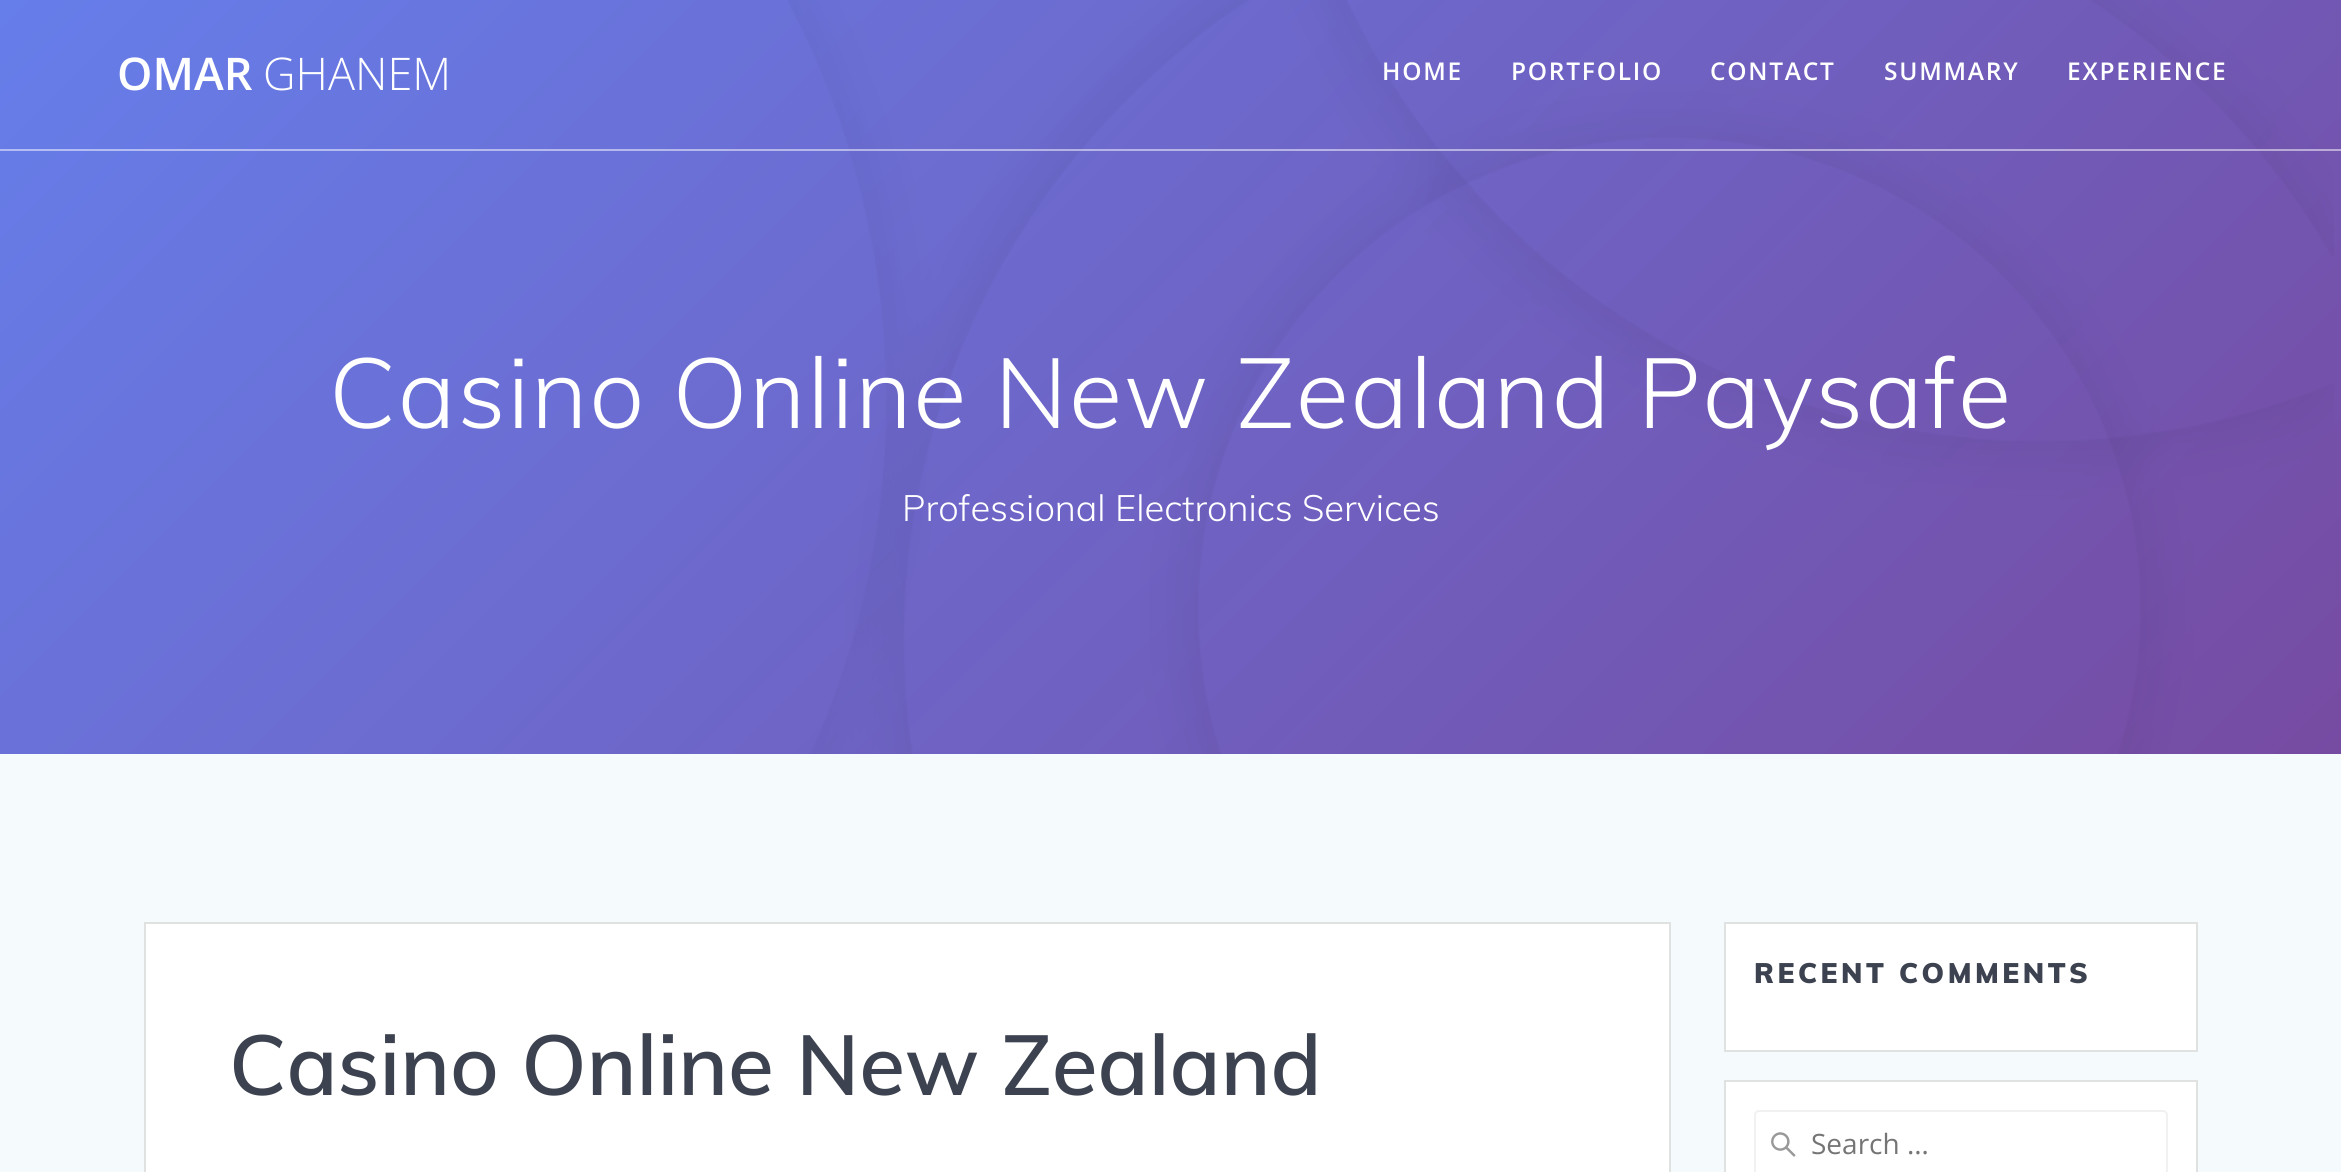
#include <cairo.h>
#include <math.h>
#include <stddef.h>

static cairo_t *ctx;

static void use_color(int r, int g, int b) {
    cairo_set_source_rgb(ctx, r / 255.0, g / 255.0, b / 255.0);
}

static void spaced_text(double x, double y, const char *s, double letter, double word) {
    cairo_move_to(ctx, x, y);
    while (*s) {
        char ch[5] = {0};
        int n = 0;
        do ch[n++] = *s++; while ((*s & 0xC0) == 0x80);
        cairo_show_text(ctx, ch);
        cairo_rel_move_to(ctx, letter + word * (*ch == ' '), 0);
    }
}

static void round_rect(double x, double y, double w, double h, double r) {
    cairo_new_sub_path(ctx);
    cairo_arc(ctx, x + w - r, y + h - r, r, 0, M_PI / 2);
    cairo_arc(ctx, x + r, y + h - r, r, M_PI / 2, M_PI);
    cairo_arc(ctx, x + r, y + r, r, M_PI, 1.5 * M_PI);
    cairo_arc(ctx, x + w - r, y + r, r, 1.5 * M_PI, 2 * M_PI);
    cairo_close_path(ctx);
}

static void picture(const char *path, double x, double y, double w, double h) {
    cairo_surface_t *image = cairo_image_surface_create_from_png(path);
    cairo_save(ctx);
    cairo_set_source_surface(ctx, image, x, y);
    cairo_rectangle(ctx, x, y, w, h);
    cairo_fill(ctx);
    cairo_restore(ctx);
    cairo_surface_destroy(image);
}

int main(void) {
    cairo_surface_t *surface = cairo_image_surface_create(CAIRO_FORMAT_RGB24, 2341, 1172);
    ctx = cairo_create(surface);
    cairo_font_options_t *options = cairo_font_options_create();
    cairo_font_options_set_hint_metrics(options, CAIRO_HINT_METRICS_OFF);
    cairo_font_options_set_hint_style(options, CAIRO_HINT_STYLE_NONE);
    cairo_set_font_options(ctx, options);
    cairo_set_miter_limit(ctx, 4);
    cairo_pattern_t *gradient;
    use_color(255, 255, 255);
    cairo_paint(ctx);
    gradient = cairo_pattern_create_linear(397, -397, 1945, 1151);
    cairo_pattern_add_color_stop_rgba(gradient, 0, 0.4, 0.494, 0.918, 1);
    cairo_pattern_add_color_stop_rgba(gradient, 1, 0.463, 0.294, 0.635, 1);
    cairo_set_source(ctx, gradient);
    cairo_pattern_destroy(gradient);
    cairo_rectangle(ctx, 0, 0, 2341, 754);
    cairo_fill(ctx);
    picture("img1.png", 788, 0, 1546, 754);
    cairo_set_source_rgba(ctx, 1, 1, 1, 0.5);
    cairo_rectangle(ctx, 0, 149, 2341, 2);
    cairo_fill(ctx);
    cairo_select_font_face(ctx, "Open Sans SemiBold", CAIRO_FONT_SLANT_NORMAL, CAIRO_FONT_WEIGHT_NORMAL);
    cairo_set_font_size(ctx, 45);
    use_color(255, 255, 255);
    cairo_move_to(ctx, 117, 90);
    cairo_show_text(ctx, "OMAR");
    cairo_select_font_face(ctx, "Open Sans Light", CAIRO_FONT_SLANT_NORMAL, CAIRO_FONT_WEIGHT_NORMAL);
    cairo_move_to(ctx, 263, 90);
    cairo_show_text(ctx, "GHANEM");
    cairo_select_font_face(ctx, "Open Sans SemiBold", CAIRO_FONT_SLANT_NORMAL, CAIRO_FONT_WEIGHT_NORMAL);
    cairo_set_font_size(ctx, 24.5);
    spaced_text(1382, 80, "HOME", 1.75, 0);
    spaced_text(1511, 80, "PORTFOLIO", 1.75, 0);
    spaced_text(1710, 80, "CONTACT", 1.75, 0);
    spaced_text(1884, 80, "SUMMARY", 1.75, 0);
    spaced_text(2067, 80, "EXPERIENCE", 1.75, 0);
    cairo_select_font_face(ctx, "Muli Light", CAIRO_FONT_SLANT_NORMAL, CAIRO_FONT_WEIGHT_NORMAL);
    cairo_set_font_size(ctx, 98);
    spaced_text(329, 428, "Casino Online New Zealand Paysafe", 1.6, 0);
    cairo_set_font_size(ctx, 36.4);
    cairo_move_to(ctx, 902, 521);
    cairo_show_text(ctx, "Professional Electronics Services");
    use_color(245, 250, 253);
    cairo_rectangle(ctx, 0, 754, 2341, 418);
    cairo_fill(ctx);
    use_color(255, 255, 255);
    cairo_rectangle(ctx, 145, 923, 1525, 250);
    cairo_fill_preserve(ctx);
    use_color(224, 225, 225);
    cairo_stroke(ctx);
    cairo_select_font_face(ctx, "Muli SemiBold", CAIRO_FONT_SLANT_NORMAL, CAIRO_FONT_WEIGHT_NORMAL);
    cairo_set_font_size(ctx, 84);
    use_color(60, 66, 79);
    cairo_move_to(ctx, 229, 1095);
    cairo_show_text(ctx, "Casino Online New Zealand");
    use_color(255, 255, 255);
    cairo_rectangle(ctx, 1725, 923, 472, 128);
    cairo_fill_preserve(ctx);
    use_color(224, 225, 225);
    cairo_stroke(ctx);
    cairo_select_font_face(ctx, "Muli Black", CAIRO_FONT_SLANT_NORMAL, CAIRO_FONT_WEIGHT_NORMAL);
    cairo_set_font_size(ctx, 28);
    use_color(60, 66, 79);
    spaced_text(1754, 983, "RECENT COMMENTS", 3.5, 0);
    use_color(255, 255, 255);
    cairo_rectangle(ctx, 1725, 1081, 472, 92);
    cairo_fill_preserve(ctx);
    use_color(224, 225, 225);
    cairo_stroke(ctx);
    picture("img2.png", 1771, 1132, 25, 25);
    round_rect(1755, 1111, 412, 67, 4);
    use_color(241, 241, 241);
    cairo_stroke(ctx);
    cairo_select_font_face(ctx, "Open Sans", CAIRO_FONT_SLANT_NORMAL, CAIRO_FONT_WEIGHT_NORMAL);
    use_color(117, 117, 117);
    cairo_move_to(ctx, 1811, 1154);
    cairo_show_text(ctx, "Search …");
    cairo_surface_write_to_png(surface, "result.png");
    cairo_font_options_destroy(options);
    cairo_destroy(ctx);
    cairo_surface_destroy(surface);
    return 0;
}
